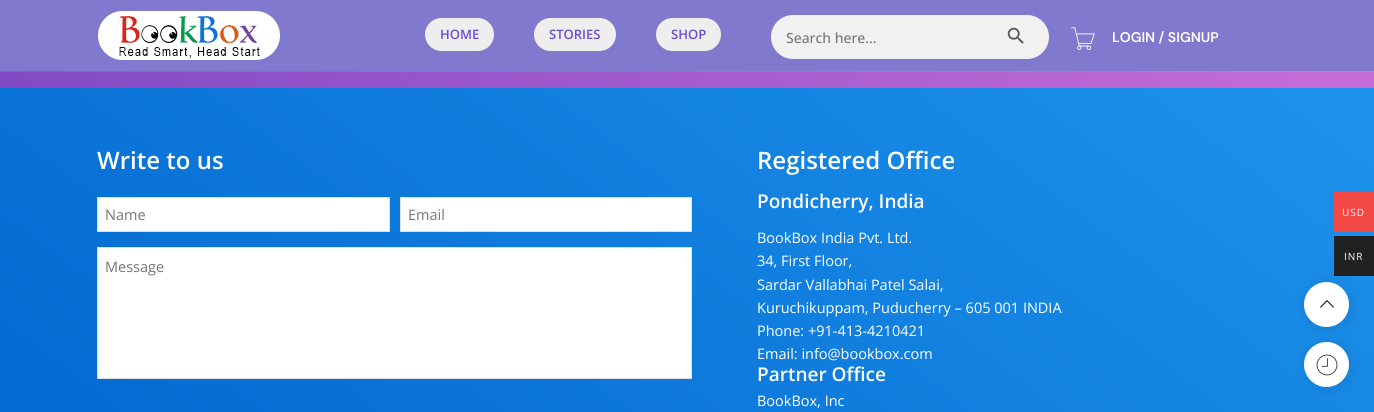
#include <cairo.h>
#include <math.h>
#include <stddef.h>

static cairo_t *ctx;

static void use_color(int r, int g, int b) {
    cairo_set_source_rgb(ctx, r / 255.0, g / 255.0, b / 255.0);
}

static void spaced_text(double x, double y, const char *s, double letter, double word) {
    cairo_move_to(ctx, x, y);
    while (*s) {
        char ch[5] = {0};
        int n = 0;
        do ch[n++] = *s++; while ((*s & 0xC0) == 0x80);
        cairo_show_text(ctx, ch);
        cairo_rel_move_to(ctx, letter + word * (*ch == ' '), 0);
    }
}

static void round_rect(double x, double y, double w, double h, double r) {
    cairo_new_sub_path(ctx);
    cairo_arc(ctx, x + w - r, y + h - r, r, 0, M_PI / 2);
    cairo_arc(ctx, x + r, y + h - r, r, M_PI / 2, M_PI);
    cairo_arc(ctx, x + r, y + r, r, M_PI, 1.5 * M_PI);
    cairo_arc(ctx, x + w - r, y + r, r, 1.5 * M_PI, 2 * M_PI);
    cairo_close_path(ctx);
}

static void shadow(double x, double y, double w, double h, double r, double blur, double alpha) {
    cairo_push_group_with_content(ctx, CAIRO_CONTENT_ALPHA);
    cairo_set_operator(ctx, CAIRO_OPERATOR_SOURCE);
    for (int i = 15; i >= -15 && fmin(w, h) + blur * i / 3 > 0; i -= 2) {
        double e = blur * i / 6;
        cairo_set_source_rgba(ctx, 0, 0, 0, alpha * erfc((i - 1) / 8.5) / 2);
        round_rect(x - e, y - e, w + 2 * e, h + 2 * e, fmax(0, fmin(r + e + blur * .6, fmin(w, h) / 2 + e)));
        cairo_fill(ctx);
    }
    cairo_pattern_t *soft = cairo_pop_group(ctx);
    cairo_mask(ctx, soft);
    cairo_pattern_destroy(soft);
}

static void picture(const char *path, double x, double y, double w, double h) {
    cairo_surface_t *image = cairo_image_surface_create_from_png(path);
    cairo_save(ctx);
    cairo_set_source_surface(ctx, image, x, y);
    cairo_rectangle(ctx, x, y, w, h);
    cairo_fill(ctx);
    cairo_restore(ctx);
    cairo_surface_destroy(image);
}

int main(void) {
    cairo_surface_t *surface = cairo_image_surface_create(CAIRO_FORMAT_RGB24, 1374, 412);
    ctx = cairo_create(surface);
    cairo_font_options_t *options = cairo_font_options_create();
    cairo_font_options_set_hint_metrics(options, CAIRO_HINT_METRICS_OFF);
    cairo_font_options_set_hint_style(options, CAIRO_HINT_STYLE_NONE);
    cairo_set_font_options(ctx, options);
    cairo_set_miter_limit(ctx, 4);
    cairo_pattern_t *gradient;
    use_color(255, 255, 255);
    cairo_paint(ctx);
    gradient = cairo_pattern_create_linear(-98, -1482, 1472, -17);
    cairo_pattern_add_color_stop_rgba(gradient, 0, 0.188, 0.137, 0.682, 1);
    cairo_pattern_add_color_stop_rgba(gradient, 1, 0.784, 0.427, 0.843, 1);
    cairo_set_source(ctx, gradient);
    cairo_pattern_destroy(gradient);
    cairo_rectangle(ctx, 0, 71, 1374, 17);
    cairo_fill(ctx);
    use_color(202, 188, 188);
    shadow(0, 0, 1374, 71, 0, 1, 0.5);
    use_color(129, 121, 205);
    cairo_rectangle(ctx, 0, 0, 1374, 71);
    cairo_fill(ctx);
    picture("img1.png", 98, 11, 182, 49);
    use_color(238, 238, 238);
    round_rect(425, 18, 69, 33, 16.5);
    cairo_fill(ctx);
    cairo_select_font_face(ctx, "Open Sans SemiBold", CAIRO_FONT_SLANT_NORMAL, CAIRO_FONT_WEIGHT_NORMAL);
    cairo_set_font_size(ctx, 13);
    use_color(107, 77, 213);
    cairo_move_to(ctx, 440, 39);
    cairo_show_text(ctx, "HOME");
    use_color(238, 238, 238);
    round_rect(534, 18, 82, 33, 16.5);
    cairo_fill(ctx);
    use_color(107, 77, 213);
    cairo_move_to(ctx, 549, 39);
    cairo_show_text(ctx, "STORIES");
    use_color(238, 238, 238);
    round_rect(656, 18, 65, 33, 16.5);
    cairo_fill(ctx);
    use_color(107, 77, 213);
    cairo_move_to(ctx, 671, 39);
    cairo_show_text(ctx, "SHOP");
    use_color(241, 241, 241);
    round_rect(771, 15, 278, 44, 22);
    cairo_fill(ctx);
    cairo_select_font_face(ctx, "Open Sans Medium", CAIRO_FONT_SLANT_NORMAL, CAIRO_FONT_WEIGHT_NORMAL);
    cairo_set_font_size(ctx, 14);
    use_color(117, 117, 117);
    cairo_move_to(ctx, 786, 43);
    cairo_show_text(ctx, "Search here...");
    picture("img2.png", 1007, 27, 17, 17);
    picture("img3.png", 1071, 27, 24, 23);
    cairo_select_font_face(ctx, "DM Sans SemiBold", CAIRO_FONT_SLANT_NORMAL, CAIRO_FONT_WEIGHT_NORMAL);
    use_color(255, 255, 255);
    cairo_move_to(ctx, 1112, 42);
    cairo_show_text(ctx, "LOGIN / SIGNUP");
    gradient = cairo_pattern_create_linear(1058, -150, 316, 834);
    cairo_pattern_add_color_stop_rgba(gradient, 0, 0.114, 0.576, 0.922, 1);
    cairo_pattern_add_color_stop_rgba(gradient, 1, 0, 0.388, 0.804, 1);
    cairo_set_source(ctx, gradient);
    cairo_pattern_destroy(gradient);
    cairo_rectangle(ctx, 0, 88, 1374, 324);
    cairo_fill(ctx);
    cairo_select_font_face(ctx, "Open Sans SemiBold", CAIRO_FONT_SLANT_NORMAL, CAIRO_FONT_WEIGHT_NORMAL);
    cairo_set_font_size(ctx, 24);
    use_color(255, 255, 255);
    cairo_move_to(ctx, 97, 169);
    cairo_show_text(ctx, "Write to us");
    cairo_rectangle(ctx, 97.5, 197.5, 292, 34);
    cairo_fill_preserve(ctx);
    use_color(222, 222, 222);
    cairo_set_line_width(ctx, 1);
    cairo_stroke(ctx);
    cairo_select_font_face(ctx, "Open Sans", CAIRO_FONT_SLANT_NORMAL, CAIRO_FONT_WEIGHT_NORMAL);
    cairo_set_font_size(ctx, 14.5);
    use_color(117, 117, 117);
    cairo_move_to(ctx, 105, 220);
    cairo_show_text(ctx, "Name");
    use_color(255, 255, 255);
    cairo_rectangle(ctx, 400.5, 197.5, 291, 34);
    cairo_fill_preserve(ctx);
    use_color(222, 222, 222);
    cairo_stroke(ctx);
    use_color(117, 117, 117);
    cairo_move_to(ctx, 408, 220);
    cairo_show_text(ctx, "Email");
    use_color(255, 255, 255);
    cairo_rectangle(ctx, 97.5, 247.5, 594, 131);
    cairo_fill_preserve(ctx);
    use_color(222, 222, 222);
    cairo_stroke(ctx);
    use_color(117, 117, 117);
    cairo_move_to(ctx, 105, 272);
    cairo_show_text(ctx, "Message");
    cairo_select_font_face(ctx, "Open Sans SemiBold", CAIRO_FONT_SLANT_NORMAL, CAIRO_FONT_WEIGHT_NORMAL);
    cairo_set_font_size(ctx, 24);
    use_color(255, 255, 255);
    cairo_move_to(ctx, 757, 169);
    cairo_show_text(ctx, "Registered Office");
    cairo_set_font_size(ctx, 19);
    cairo_move_to(ctx, 757, 208);
    cairo_show_text(ctx, "Pondicherry, India");
    cairo_select_font_face(ctx, "Open Sans", CAIRO_FONT_SLANT_NORMAL, CAIRO_FONT_WEIGHT_NORMAL);
    cairo_set_font_size(ctx, 14.5);
    cairo_move_to(ctx, 757, 243);
    cairo_show_text(ctx, "BookBox India Pvt. Ltd.");
    cairo_move_to(ctx, 757, 266);
    cairo_show_text(ctx, "34, First Floor,");
    cairo_move_to(ctx, 757, 290);
    cairo_show_text(ctx, "Sardar Vallabhai Patel Salai,");
    cairo_move_to(ctx, 757, 313);
    cairo_show_text(ctx, "Kuruchikuppam, Puducherry – 605 001 INDIA");
    cairo_move_to(ctx, 757, 336);
    cairo_show_text(ctx, "Phone: +91-413-4210421");
    cairo_move_to(ctx, 757, 359);
    cairo_show_text(ctx, "Email: info@bookbox.com");
    cairo_select_font_face(ctx, "Open Sans SemiBold", CAIRO_FONT_SLANT_NORMAL, CAIRO_FONT_WEIGHT_NORMAL);
    cairo_set_font_size(ctx, 19);
    cairo_move_to(ctx, 757, 381);
    cairo_show_text(ctx, "Partner Office");
    cairo_select_font_face(ctx, "Open Sans", CAIRO_FONT_SLANT_NORMAL, CAIRO_FONT_WEIGHT_NORMAL);
    cairo_set_font_size(ctx, 14.5);
    cairo_move_to(ctx, 757, 406);
    cairo_show_text(ctx, "BookBox, Inc");
    use_color(244, 74, 71);
    cairo_rectangle(ctx, 1334, 192, 40, 40);
    cairo_fill(ctx);
    cairo_set_font_size(ctx, 10);
    use_color(255, 255, 255);
    spaced_text(1342, 216, "USD", 1, 0);
    use_color(0, 0, 0);
    shadow(1304, 282, 47, 47, 23.5, 5, 0.1);
    use_color(33, 33, 33);
    cairo_rectangle(ctx, 1334, 236, 40, 40);
    cairo_fill(ctx);
    use_color(255, 255, 255);
    spaced_text(1344, 260, "INR", 1, 0);
    cairo_new_path(ctx);
    cairo_arc(ctx, 1326.5, 304.5, 22.5, 0, 2 * M_PI);
    cairo_fill(ctx);
    picture("img4.png", 1320, 300, 14, 8);
    use_color(0, 0, 0);
    shadow(1304, 342, 47, 47, 23.5, 5, 0.1);
    use_color(255, 255, 255);
    cairo_arc(ctx, 1326.5, 364.5, 22.5, 0, 2 * M_PI);
    cairo_fill(ctx);
    picture("img5.png", 1316, 354, 22, 22);
    cairo_surface_write_to_png(surface, "result.png");
    cairo_font_options_destroy(options);
    cairo_destroy(ctx);
    cairo_surface_destroy(surface);
    return 0;
}
